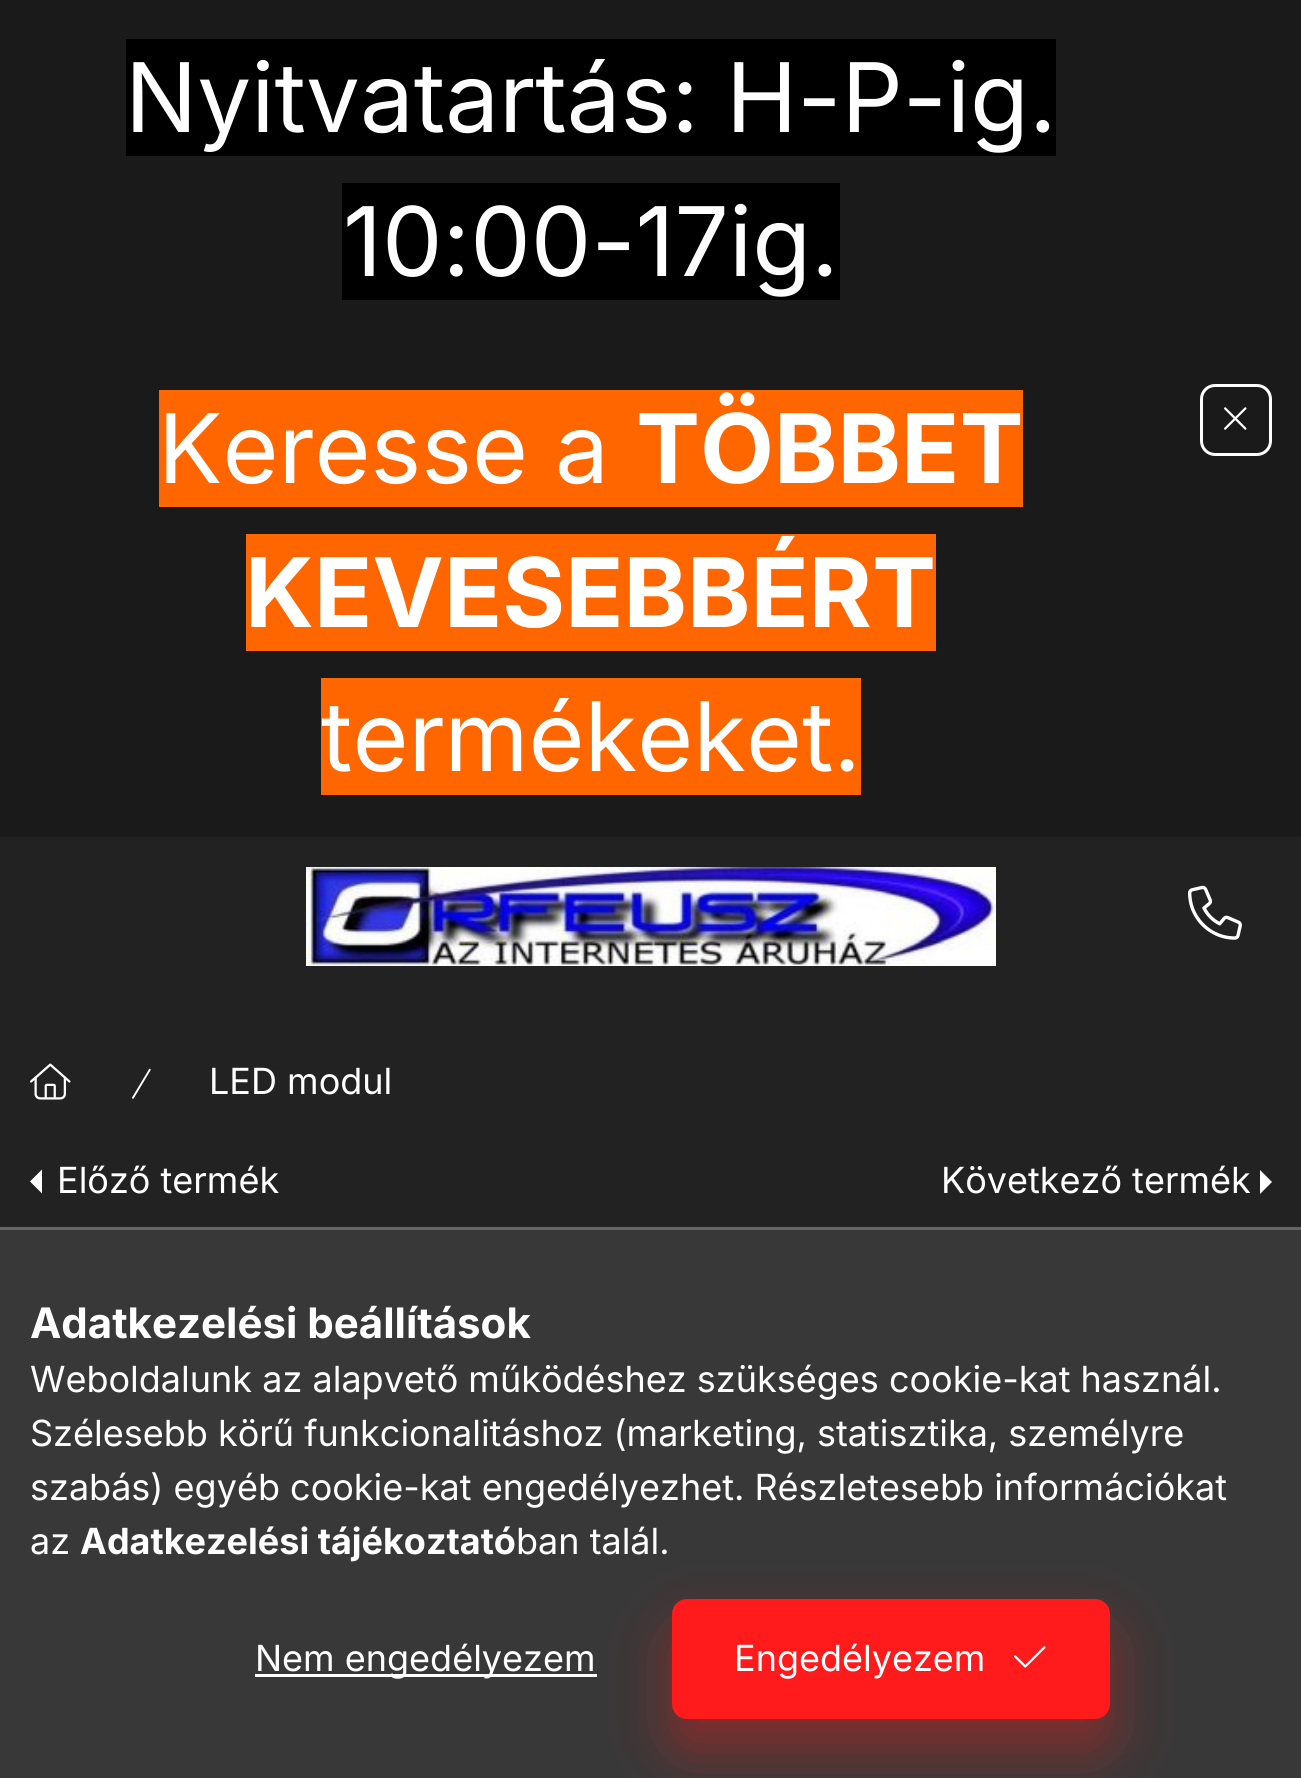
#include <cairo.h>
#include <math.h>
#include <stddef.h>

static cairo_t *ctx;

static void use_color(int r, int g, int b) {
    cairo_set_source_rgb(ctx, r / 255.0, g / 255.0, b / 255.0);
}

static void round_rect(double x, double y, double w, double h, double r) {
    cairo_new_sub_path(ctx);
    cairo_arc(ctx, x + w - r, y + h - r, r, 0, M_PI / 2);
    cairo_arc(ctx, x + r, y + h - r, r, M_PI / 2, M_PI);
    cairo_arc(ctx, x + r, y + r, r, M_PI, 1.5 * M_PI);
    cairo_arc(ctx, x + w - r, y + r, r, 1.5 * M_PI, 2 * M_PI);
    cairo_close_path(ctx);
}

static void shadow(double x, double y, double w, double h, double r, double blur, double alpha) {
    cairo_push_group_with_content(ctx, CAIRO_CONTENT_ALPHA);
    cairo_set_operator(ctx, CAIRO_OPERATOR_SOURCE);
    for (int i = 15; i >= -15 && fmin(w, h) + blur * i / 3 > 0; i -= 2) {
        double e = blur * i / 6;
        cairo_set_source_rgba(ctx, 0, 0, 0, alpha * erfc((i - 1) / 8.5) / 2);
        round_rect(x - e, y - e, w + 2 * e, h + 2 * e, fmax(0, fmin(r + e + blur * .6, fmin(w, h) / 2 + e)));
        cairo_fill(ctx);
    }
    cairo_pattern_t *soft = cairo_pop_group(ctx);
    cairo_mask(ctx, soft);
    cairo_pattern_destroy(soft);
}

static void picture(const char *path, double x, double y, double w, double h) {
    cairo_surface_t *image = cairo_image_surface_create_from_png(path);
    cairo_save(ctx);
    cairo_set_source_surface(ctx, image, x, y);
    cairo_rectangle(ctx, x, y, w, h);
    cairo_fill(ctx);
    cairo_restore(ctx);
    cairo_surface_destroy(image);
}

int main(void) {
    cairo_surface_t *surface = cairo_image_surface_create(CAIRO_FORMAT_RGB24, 1301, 1778);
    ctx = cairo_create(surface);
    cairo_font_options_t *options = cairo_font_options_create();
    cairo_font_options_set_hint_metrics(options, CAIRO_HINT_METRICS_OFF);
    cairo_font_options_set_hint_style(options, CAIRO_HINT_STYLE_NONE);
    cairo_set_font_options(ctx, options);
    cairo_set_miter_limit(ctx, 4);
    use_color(34, 34, 34);
    cairo_paint(ctx);
    use_color(26, 26, 26);
    cairo_rectangle(ctx, 0, 0, 1301, 837);
    cairo_fill(ctx);
    use_color(0, 0, 0);
    cairo_rectangle(ctx, 126, 39, 930, 117);
    cairo_fill(ctx);
    cairo_select_font_face(ctx, "Inter", CAIRO_FONT_SLANT_NORMAL, CAIRO_FONT_WEIGHT_NORMAL);
    cairo_set_font_size(ctx, 96);
    use_color(255, 255, 255);
    cairo_move_to(ctx, 125, 132);
    cairo_show_text(ctx, "Nyitvatartás: H-P-ig.");
    use_color(0, 0, 0);
    cairo_rectangle(ctx, 342, 183, 498, 117);
    cairo_fill(ctx);
    use_color(255, 255, 255);
    cairo_move_to(ctx, 343, 276);
    cairo_show_text(ctx, "10:00-17ig.");
    use_color(255, 102, 0);
    cairo_rectangle(ctx, 159, 390, 864, 117);
    cairo_fill(ctx);
    use_color(255, 255, 255);
    cairo_move_to(ctx, 158, 483);
    cairo_show_text(ctx, "Keresse a");
    cairo_select_font_face(ctx, "Inter", CAIRO_FONT_SLANT_NORMAL, CAIRO_FONT_WEIGHT_BOLD);
    cairo_move_to(ctx, 636, 483);
    cairo_show_text(ctx, "TÖBBET");
    use_color(255, 102, 0);
    cairo_rectangle(ctx, 246, 534, 690, 117);
    cairo_fill(ctx);
    use_color(255, 255, 255);
    cairo_move_to(ctx, 245, 627);
    cairo_show_text(ctx, "KEVESEBBÉRT");
    use_color(255, 102, 0);
    cairo_rectangle(ctx, 321, 678, 540, 117);
    cairo_fill(ctx);
    cairo_select_font_face(ctx, "Inter", CAIRO_FONT_SLANT_NORMAL, CAIRO_FONT_WEIGHT_NORMAL);
    use_color(255, 255, 255);
    cairo_move_to(ctx, 321, 771);
    cairo_show_text(ctx, "termékeket.");
    round_rect(1201.5, 385.5, 69, 69, 13.5);
    cairo_set_line_width(ctx, 3);
    cairo_stroke(ctx);
    picture("img1.png", 1224, 407, 23, 23);
    picture("img2.png", 306, 867, 690, 99);
    picture("img3.png", 1188, 885, 54, 55);
    picture("img4.png", 30, 1063, 41, 37);
    picture("img5.png", 132, 1068, 19, 31);
    cairo_set_font_size(ctx, 36);
    cairo_move_to(ctx, 209, 1094);
    cairo_show_text(ctx, "LED modul");
    cairo_new_path(ctx);
    cairo_move_to(ctx, 42, 1193.5);
    cairo_line_to(ctx, 42, 1169.5);
    cairo_line_to(ctx, 30, 1181.5);
    cairo_close_path(ctx);
    cairo_fill(ctx);
    cairo_move_to(ctx, 57, 1193);
    cairo_show_text(ctx, "Előző termék");
    cairo_move_to(ctx, 941, 1193);
    cairo_show_text(ctx, "Következő termék");
    cairo_new_path(ctx);
    cairo_move_to(ctx, 1260, 1194);
    cairo_line_to(ctx, 1260, 1170);
    cairo_line_to(ctx, 1272, 1182);
    cairo_close_path(ctx);
    cairo_fill(ctx);
    use_color(56, 56, 56);
    cairo_rectangle(ctx, 0, 1230, 1301, 548);
    cairo_fill(ctx);
    use_color(102, 102, 102);
    cairo_rectangle(ctx, 0, 1227, 1301, 3);
    cairo_fill(ctx);
    cairo_select_font_face(ctx, "Inter", CAIRO_FONT_SLANT_NORMAL, CAIRO_FONT_WEIGHT_BOLD);
    cairo_set_font_size(ctx, 42);
    use_color(255, 255, 255);
    cairo_move_to(ctx, 30, 1338);
    cairo_show_text(ctx, "Adatkezelési beállítások");
    cairo_select_font_face(ctx, "Inter", CAIRO_FONT_SLANT_NORMAL, CAIRO_FONT_WEIGHT_NORMAL);
    cairo_set_font_size(ctx, 36);
    cairo_move_to(ctx, 30, 1392);
    cairo_show_text(ctx, "Weboldalunk az alapvető működéshez szükséges cookie-kat használ.");
    cairo_move_to(ctx, 30, 1446);
    cairo_show_text(ctx, "Szélesebb körű funkcionalitáshoz (marketing, statisztika, személyre");
    cairo_move_to(ctx, 30, 1500);
    cairo_show_text(ctx, "szabás) egyéb cookie-kat engedélyezhet. Részletesebb információkat");
    cairo_move_to(ctx, 30, 1554);
    cairo_show_text(ctx, "az");
    cairo_select_font_face(ctx, "Inter", CAIRO_FONT_SLANT_NORMAL, CAIRO_FONT_WEIGHT_BOLD);
    cairo_move_to(ctx, 80, 1554);
    cairo_show_text(ctx, "Adatkezelési tájékoztató");
    cairo_select_font_face(ctx, "Inter", CAIRO_FONT_SLANT_NORMAL, CAIRO_FONT_WEIGHT_NORMAL);
    cairo_move_to(ctx, 516, 1554);
    cairo_show_text(ctx, "ban talál.");
    cairo_rectangle(ctx, 255, 1674, 342, 3);
    cairo_fill(ctx);
    cairo_move_to(ctx, 255, 1671);
    cairo_show_text(ctx, "Nem engedélyezem");
    use_color(255, 27, 27);
    shadow(672, 1629, 438, 120, 15, 30, 0.4);
    use_color(255, 27, 27);
    round_rect(673.5, 1600.5, 435, 117, 13.5);
    cairo_fill_preserve(ctx);
    cairo_stroke(ctx);
    use_color(255, 255, 255);
    cairo_move_to(ctx, 734, 1671);
    cairo_show_text(ctx, "Engedélyezem");
    picture("img6.png", 1014, 1646, 32, 22);
    cairo_surface_write_to_png(surface, "result.png");
    cairo_font_options_destroy(options);
    cairo_destroy(ctx);
    cairo_surface_destroy(surface);
    return 0;
}
